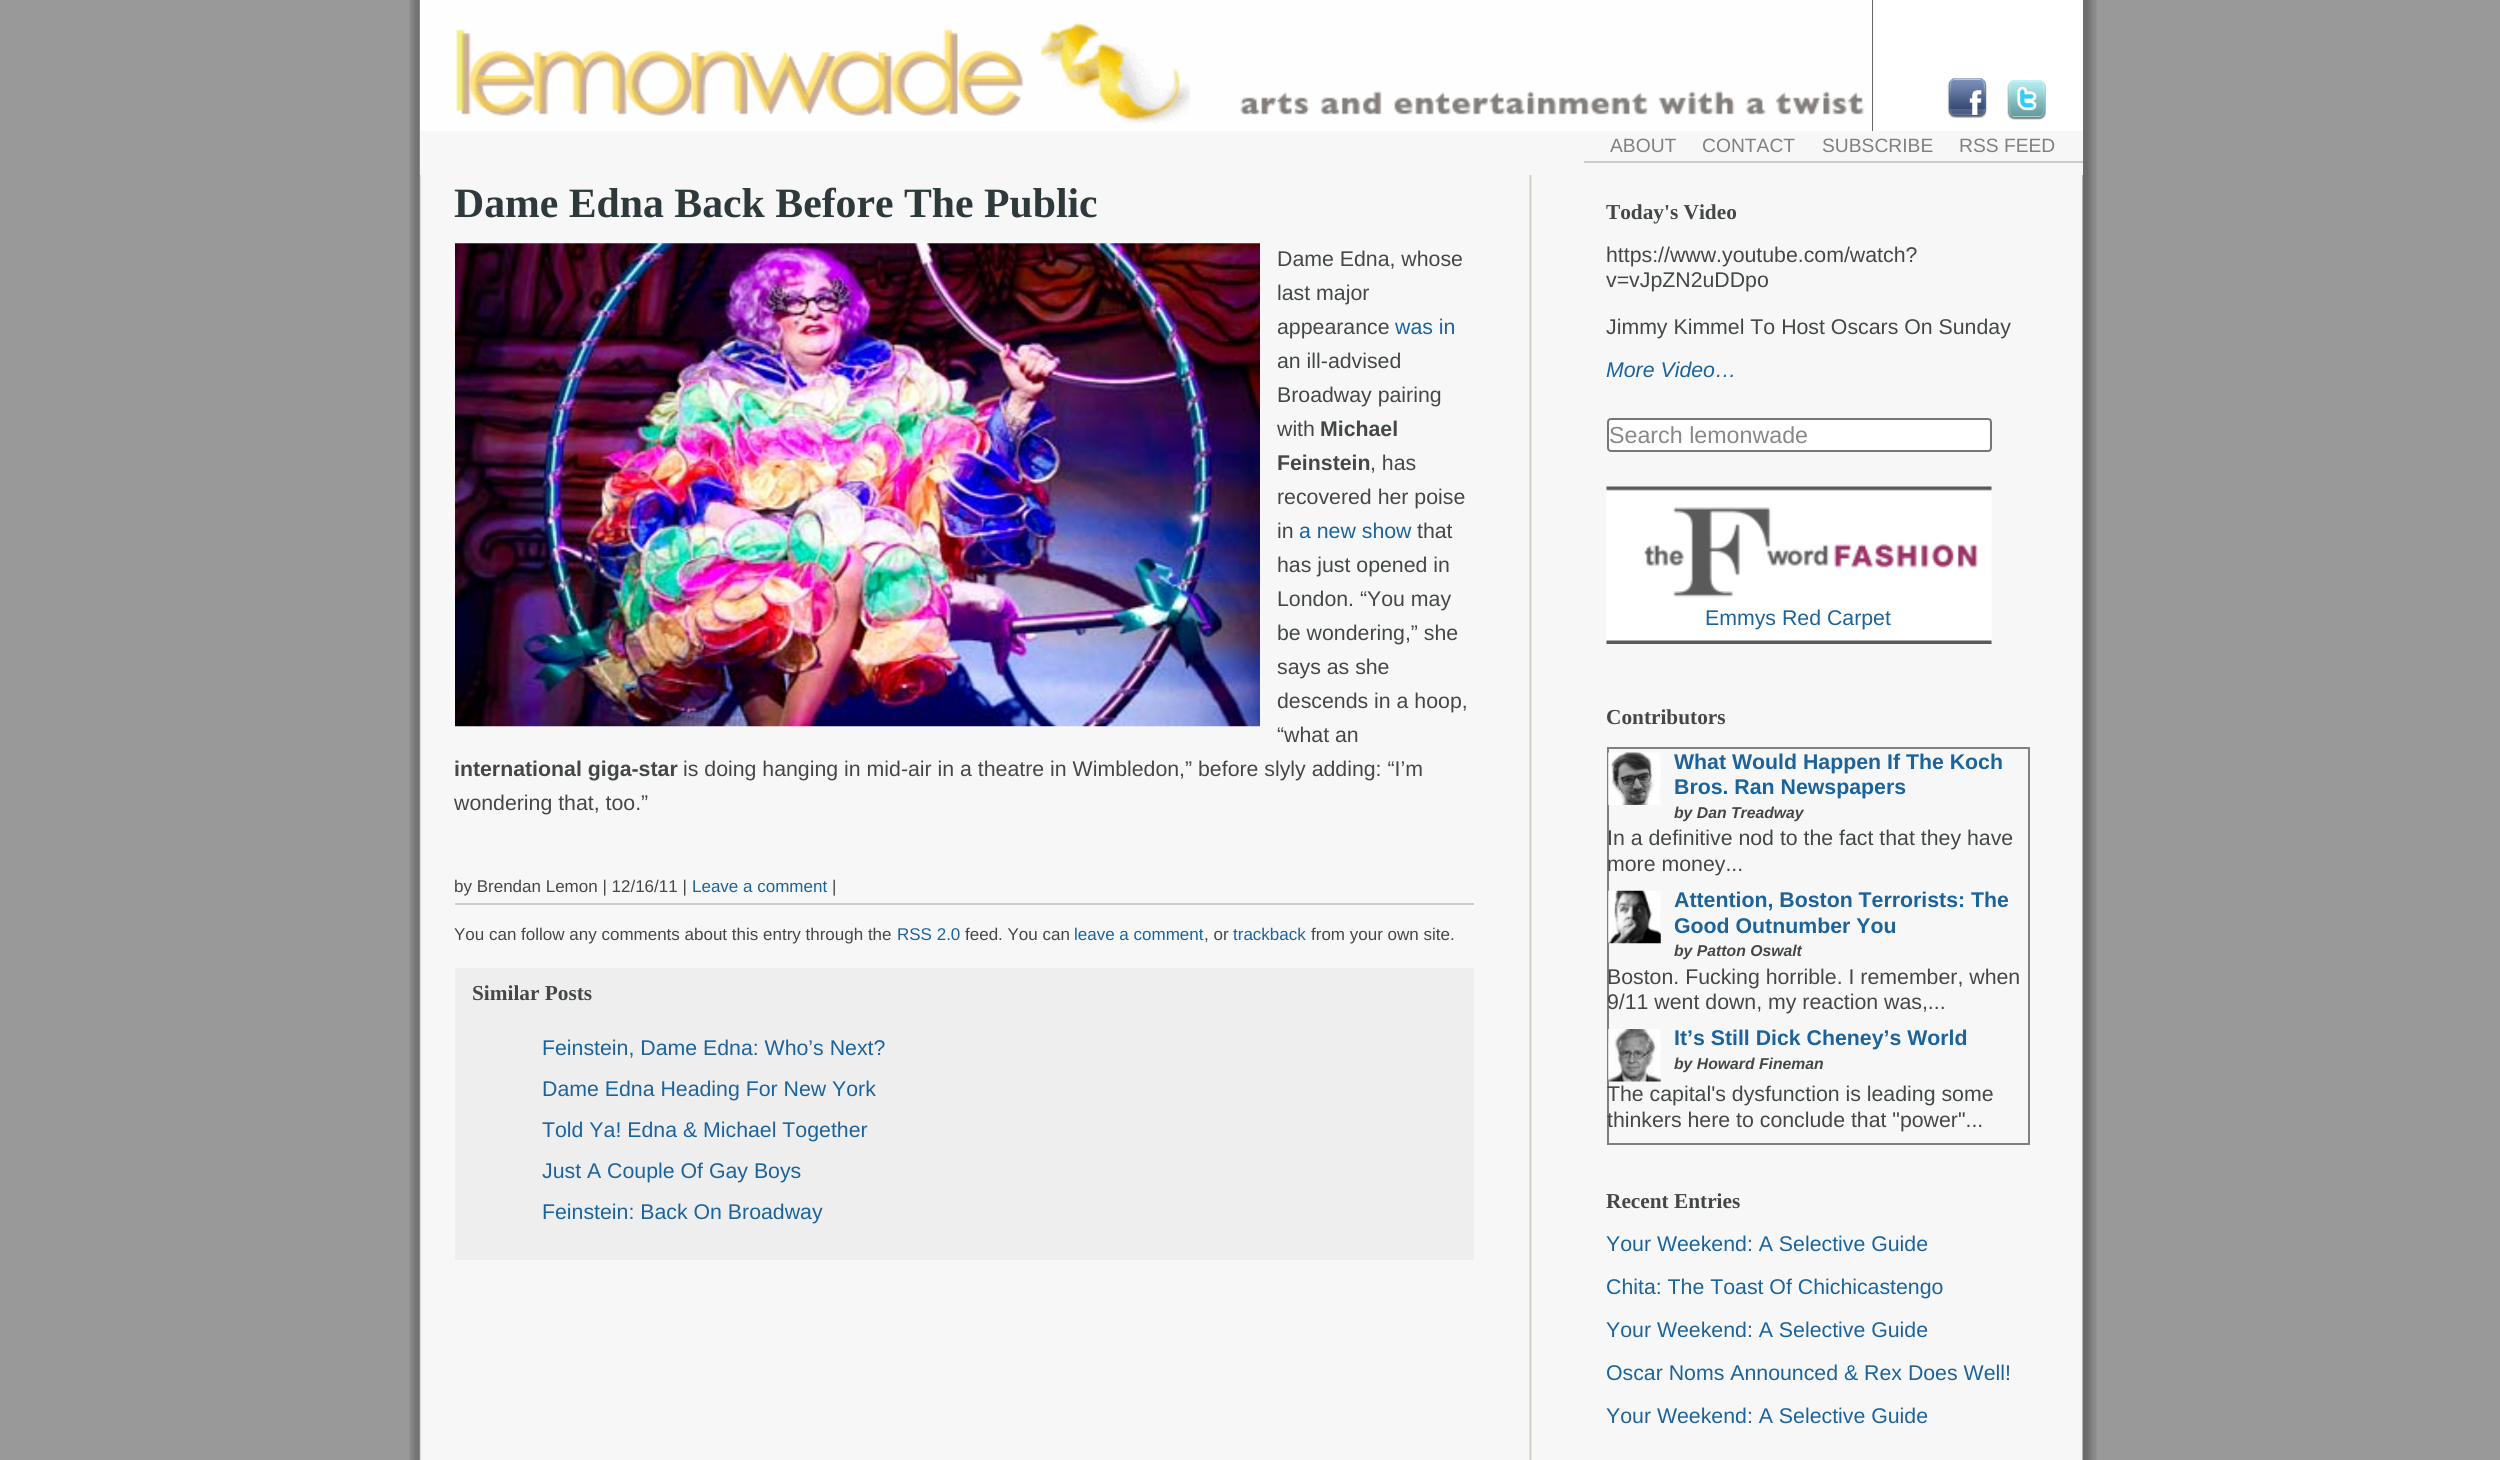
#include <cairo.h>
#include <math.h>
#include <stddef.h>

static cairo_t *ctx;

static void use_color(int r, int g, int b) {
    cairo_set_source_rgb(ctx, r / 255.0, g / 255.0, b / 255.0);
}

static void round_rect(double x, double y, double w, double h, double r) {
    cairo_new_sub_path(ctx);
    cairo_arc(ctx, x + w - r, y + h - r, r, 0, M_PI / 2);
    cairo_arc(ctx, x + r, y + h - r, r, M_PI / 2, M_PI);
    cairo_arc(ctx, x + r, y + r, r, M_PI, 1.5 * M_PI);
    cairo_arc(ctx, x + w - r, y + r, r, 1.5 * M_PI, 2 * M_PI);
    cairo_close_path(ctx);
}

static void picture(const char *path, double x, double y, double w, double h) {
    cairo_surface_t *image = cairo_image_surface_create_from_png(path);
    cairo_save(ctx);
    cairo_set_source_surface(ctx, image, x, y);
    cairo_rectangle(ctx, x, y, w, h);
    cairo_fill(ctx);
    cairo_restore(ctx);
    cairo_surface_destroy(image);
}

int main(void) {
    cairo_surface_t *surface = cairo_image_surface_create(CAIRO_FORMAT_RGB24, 2500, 1460);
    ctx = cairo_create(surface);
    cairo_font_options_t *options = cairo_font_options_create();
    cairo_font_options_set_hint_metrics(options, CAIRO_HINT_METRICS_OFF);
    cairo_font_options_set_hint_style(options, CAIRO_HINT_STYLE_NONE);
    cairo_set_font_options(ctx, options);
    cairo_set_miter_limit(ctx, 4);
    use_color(153, 153, 153);
    cairo_paint(ctx);
    picture("img1.png", 409, 0, 1688, 1460);
    use_color(255, 255, 255);
    cairo_rectangle(ctx, 1873, 0, 210, 131);
    cairo_fill(ctx);
    use_color(51, 51, 51);
    cairo_rectangle(ctx, 1872, 0, 1, 131);
    cairo_fill(ctx);
    picture("img2.png", 420, 0, 1453, 131);
    picture("img3.png", 1947, 78, 40, 40);
    picture("img4.png", 2007, 80, 39, 40);
    use_color(247, 247, 247);
    cairo_rectangle(ctx, 420, 131, 1663, 44);
    cairo_fill(ctx);
    use_color(204, 204, 204);
    cairo_rectangle(ctx, 1584, 161, 499, 2);
    cairo_fill(ctx);
    cairo_select_font_face(ctx, "Liberation Sans", CAIRO_FONT_SLANT_NORMAL, CAIRO_FONT_WEIGHT_NORMAL);
    cairo_set_font_size(ctx, 19.25);
    use_color(128, 128, 128);
    cairo_move_to(ctx, 1610, 152);
    cairo_show_text(ctx, "ABOUT");
    cairo_move_to(ctx, 1702, 152);
    cairo_show_text(ctx, "CONTACT");
    cairo_move_to(ctx, 1822, 152);
    cairo_show_text(ctx, "SUBSCRIBE");
    cairo_move_to(ctx, 1959, 152);
    cairo_show_text(ctx, "RSS FEED");
    cairo_select_font_face(ctx, "Liberation Serif", CAIRO_FONT_SLANT_NORMAL, CAIRO_FONT_WEIGHT_BOLD);
    cairo_set_font_size(ctx, 41.75);
    use_color(46, 57, 59);
    cairo_move_to(ctx, 454, 217);
    cairo_show_text(ctx, "Dame Edna Back Before The Public");
    picture("img5.png", 455, 243, 805, 484);
    cairo_select_font_face(ctx, "Liberation Sans", CAIRO_FONT_SLANT_NORMAL, CAIRO_FONT_WEIGHT_NORMAL);
    cairo_set_font_size(ctx, 21.3);
    use_color(68, 71, 72);
    cairo_move_to(ctx, 1277, 266);
    cairo_show_text(ctx, "Dame Edna, whose");
    cairo_move_to(ctx, 1277, 300);
    cairo_show_text(ctx, "last major");
    cairo_move_to(ctx, 1277, 334);
    cairo_show_text(ctx, "appearance");
    use_color(28, 99, 156);
    cairo_move_to(ctx, 1395, 334);
    cairo_show_text(ctx, "was in");
    use_color(68, 71, 72);
    cairo_move_to(ctx, 1277, 368);
    cairo_show_text(ctx, "an ill-advised");
    cairo_move_to(ctx, 1277, 402);
    cairo_show_text(ctx, "Broadway pairing");
    cairo_move_to(ctx, 1277, 436);
    cairo_show_text(ctx, "with");
    cairo_select_font_face(ctx, "Liberation Sans", CAIRO_FONT_SLANT_NORMAL, CAIRO_FONT_WEIGHT_BOLD);
    cairo_move_to(ctx, 1320, 436);
    cairo_show_text(ctx, "Michael");
    cairo_move_to(ctx, 1277, 470);
    cairo_show_text(ctx, "Feinstein");
    cairo_select_font_face(ctx, "Liberation Sans", CAIRO_FONT_SLANT_NORMAL, CAIRO_FONT_WEIGHT_NORMAL);
    cairo_move_to(ctx, 1370, 470);
    cairo_show_text(ctx, ", has");
    cairo_move_to(ctx, 1277, 504);
    cairo_show_text(ctx, "recovered her poise");
    cairo_move_to(ctx, 1277, 538);
    cairo_show_text(ctx, "in");
    use_color(28, 99, 156);
    cairo_move_to(ctx, 1299, 538);
    cairo_show_text(ctx, "a new show");
    use_color(68, 71, 72);
    cairo_move_to(ctx, 1417, 538);
    cairo_show_text(ctx, "that");
    cairo_move_to(ctx, 1277, 572);
    cairo_show_text(ctx, "has just opened in");
    cairo_move_to(ctx, 1277, 606);
    cairo_show_text(ctx, "London. “You may");
    cairo_move_to(ctx, 1277, 640);
    cairo_show_text(ctx, "be wondering,” she");
    cairo_move_to(ctx, 1277, 674);
    cairo_show_text(ctx, "says as she");
    cairo_move_to(ctx, 1277, 708);
    cairo_show_text(ctx, "descends in a hoop,");
    cairo_move_to(ctx, 1277, 742);
    cairo_show_text(ctx, "“what an");
    cairo_select_font_face(ctx, "Liberation Sans", CAIRO_FONT_SLANT_NORMAL, CAIRO_FONT_WEIGHT_BOLD);
    cairo_move_to(ctx, 454, 776);
    cairo_show_text(ctx, "international giga-star");
    cairo_select_font_face(ctx, "Liberation Sans", CAIRO_FONT_SLANT_NORMAL, CAIRO_FONT_WEIGHT_NORMAL);
    cairo_move_to(ctx, 683, 776);
    cairo_show_text(ctx, "is doing hanging in mid-air in a theatre in Wimbledon,” before slyly adding: “I’m");
    cairo_move_to(ctx, 454, 810);
    cairo_show_text(ctx, "wondering that, too.”");
    use_color(204, 204, 204);
    cairo_rectangle(ctx, 455, 903, 1019, 2);
    cairo_fill(ctx);
    cairo_set_font_size(ctx, 17);
    use_color(68, 71, 72);
    cairo_move_to(ctx, 454, 892);
    cairo_show_text(ctx, "by Brendan Lemon | 12/16/11 |");
    use_color(28, 99, 156);
    cairo_move_to(ctx, 692, 892);
    cairo_show_text(ctx, "Leave a comment");
    use_color(68, 71, 72);
    cairo_move_to(ctx, 832, 892);
    cairo_show_text(ctx, "|");
    cairo_move_to(ctx, 454, 940);
    cairo_show_text(ctx, "You can follow any comments about this entry through the");
    use_color(28, 99, 156);
    cairo_move_to(ctx, 897, 940);
    cairo_show_text(ctx, "RSS 2.0");
    use_color(68, 71, 72);
    cairo_move_to(ctx, 965, 940);
    cairo_show_text(ctx, "feed. You can");
    use_color(28, 99, 156);
    cairo_move_to(ctx, 1074, 940);
    cairo_show_text(ctx, "leave a comment");
    use_color(68, 71, 72);
    cairo_move_to(ctx, 1204, 940);
    cairo_show_text(ctx, ", or");
    use_color(28, 99, 156);
    cairo_move_to(ctx, 1233, 940);
    cairo_show_text(ctx, "trackback");
    use_color(68, 71, 72);
    cairo_move_to(ctx, 1311, 940);
    cairo_show_text(ctx, "from your own site.");
    use_color(238, 238, 238);
    cairo_rectangle(ctx, 455, 968, 1019, 292);
    cairo_fill(ctx);
    cairo_select_font_face(ctx, "Liberation Serif", CAIRO_FONT_SLANT_NORMAL, CAIRO_FONT_WEIGHT_BOLD);
    cairo_set_font_size(ctx, 21.3);
    use_color(68, 71, 72);
    cairo_move_to(ctx, 472, 1000);
    cairo_show_text(ctx, "Similar Posts");
    cairo_select_font_face(ctx, "Liberation Sans", CAIRO_FONT_SLANT_NORMAL, CAIRO_FONT_WEIGHT_NORMAL);
    use_color(28, 99, 156);
    cairo_move_to(ctx, 542, 1055);
    cairo_show_text(ctx, "Feinstein, Dame Edna: Who’s Next?");
    cairo_move_to(ctx, 542, 1096);
    cairo_show_text(ctx, "Dame Edna Heading For New York");
    cairo_move_to(ctx, 542, 1137);
    cairo_show_text(ctx, "Told Ya! Edna & Michael Together");
    cairo_move_to(ctx, 542, 1178);
    cairo_show_text(ctx, "Just A Couple Of Gay Boys");
    cairo_move_to(ctx, 542, 1219);
    cairo_show_text(ctx, "Feinstein: Back On Broadway");
    cairo_select_font_face(ctx, "Liberation Serif", CAIRO_FONT_SLANT_NORMAL, CAIRO_FONT_WEIGHT_BOLD);
    use_color(68, 71, 72);
    cairo_move_to(ctx, 1606, 219);
    cairo_show_text(ctx, "Today's Video");
    cairo_select_font_face(ctx, "Liberation Sans", CAIRO_FONT_SLANT_NORMAL, CAIRO_FONT_WEIGHT_NORMAL);
    cairo_move_to(ctx, 1606, 262);
    cairo_show_text(ctx, "https://www.youtube.com/watch?");
    cairo_move_to(ctx, 1606, 287);
    cairo_show_text(ctx, "v=vJpZN2uDDpo");
    cairo_move_to(ctx, 1606, 334);
    cairo_show_text(ctx, "Jimmy Kimmel To Host Oscars On Sunday");
    cairo_select_font_face(ctx, "Liberation Sans", CAIRO_FONT_SLANT_ITALIC, CAIRO_FONT_WEIGHT_NORMAL);
    use_color(28, 99, 156);
    cairo_move_to(ctx, 1606, 377);
    cairo_show_text(ctx, "More Video…");
    use_color(255, 255, 255);
    round_rect(1608, 419, 383, 32, 3);
    cairo_fill_preserve(ctx);
    use_color(118, 118, 118);
    cairo_stroke(ctx);
    cairo_select_font_face(ctx, "Liberation Sans", CAIRO_FONT_SLANT_NORMAL, CAIRO_FONT_WEIGHT_NORMAL);
    cairo_set_font_size(ctx, 23.25);
    use_color(136, 136, 136);
    cairo_move_to(ctx, 1609, 443);
    cairo_show_text(ctx, "Search lemonwade");
    picture("img6.png", 1606, 486, 386, 158);
    cairo_set_font_size(ctx, 21.3);
    use_color(28, 99, 156);
    cairo_move_to(ctx, 1705, 625);
    cairo_show_text(ctx, "Emmys Red Carpet");
    cairo_select_font_face(ctx, "Liberation Serif", CAIRO_FONT_SLANT_NORMAL, CAIRO_FONT_WEIGHT_BOLD);
    use_color(68, 71, 72);
    cairo_move_to(ctx, 1606, 724);
    cairo_show_text(ctx, "Contributors");
    cairo_rectangle(ctx, 1608, 748, 421, 396);
    use_color(128, 128, 128);
    cairo_stroke(ctx);
    picture("img7.png", 1608, 752, 53, 53);
    cairo_select_font_face(ctx, "Liberation Sans", CAIRO_FONT_SLANT_NORMAL, CAIRO_FONT_WEIGHT_BOLD);
    use_color(28, 99, 156);
    cairo_move_to(ctx, 1674, 769);
    cairo_show_text(ctx, "What Would Happen If The Koch");
    cairo_move_to(ctx, 1674, 794);
    cairo_show_text(ctx, "Bros. Ran Newspapers");
    cairo_select_font_face(ctx, "Liberation Sans", CAIRO_FONT_SLANT_ITALIC, CAIRO_FONT_WEIGHT_BOLD);
    cairo_set_font_size(ctx, 15.75);
    use_color(68, 71, 72);
    cairo_move_to(ctx, 1674, 818);
    cairo_show_text(ctx, "by Dan Treadway");
    cairo_select_font_face(ctx, "Liberation Sans", CAIRO_FONT_SLANT_NORMAL, CAIRO_FONT_WEIGHT_NORMAL);
    cairo_set_font_size(ctx, 21.3);
    cairo_move_to(ctx, 1607, 845);
    cairo_show_text(ctx, "In a definitive nod to the fact that they have");
    cairo_move_to(ctx, 1607, 871);
    cairo_show_text(ctx, "more money...");
    picture("img8.png", 1608, 890, 53, 54);
    cairo_select_font_face(ctx, "Liberation Sans", CAIRO_FONT_SLANT_NORMAL, CAIRO_FONT_WEIGHT_BOLD);
    use_color(28, 99, 156);
    cairo_move_to(ctx, 1674, 907);
    cairo_show_text(ctx, "Attention, Boston Terrorists: The");
    cairo_move_to(ctx, 1674, 933);
    cairo_show_text(ctx, "Good Outnumber You");
    cairo_select_font_face(ctx, "Liberation Sans", CAIRO_FONT_SLANT_ITALIC, CAIRO_FONT_WEIGHT_BOLD);
    cairo_set_font_size(ctx, 15.75);
    use_color(68, 71, 72);
    cairo_move_to(ctx, 1674, 956);
    cairo_show_text(ctx, "by Patton Oswalt");
    cairo_select_font_face(ctx, "Liberation Sans", CAIRO_FONT_SLANT_NORMAL, CAIRO_FONT_WEIGHT_NORMAL);
    cairo_set_font_size(ctx, 21.3);
    cairo_move_to(ctx, 1607, 984);
    cairo_show_text(ctx, "Boston. Fucking horrible. I remember, when");
    cairo_move_to(ctx, 1607, 1009);
    cairo_show_text(ctx, "9/11 went down, my reaction was,...");
    picture("img9.png", 1608, 1029, 53, 53);
    cairo_select_font_face(ctx, "Liberation Sans", CAIRO_FONT_SLANT_NORMAL, CAIRO_FONT_WEIGHT_BOLD);
    use_color(28, 99, 156);
    cairo_move_to(ctx, 1674, 1045);
    cairo_show_text(ctx, "It’s Still Dick Cheney’s World");
    cairo_select_font_face(ctx, "Liberation Sans", CAIRO_FONT_SLANT_ITALIC, CAIRO_FONT_WEIGHT_BOLD);
    cairo_set_font_size(ctx, 15.75);
    use_color(68, 71, 72);
    cairo_move_to(ctx, 1674, 1069);
    cairo_show_text(ctx, "by Howard Fineman");
    cairo_select_font_face(ctx, "Liberation Sans", CAIRO_FONT_SLANT_NORMAL, CAIRO_FONT_WEIGHT_NORMAL);
    cairo_set_font_size(ctx, 21.3);
    cairo_move_to(ctx, 1607, 1101);
    cairo_show_text(ctx, "The capital's dysfunction is leading some");
    cairo_move_to(ctx, 1607, 1127);
    cairo_show_text(ctx, "thinkers here to conclude that \"power\"...");
    cairo_select_font_face(ctx, "Liberation Serif", CAIRO_FONT_SLANT_NORMAL, CAIRO_FONT_WEIGHT_BOLD);
    cairo_move_to(ctx, 1606, 1208);
    cairo_show_text(ctx, "Recent Entries");
    cairo_select_font_face(ctx, "Liberation Sans", CAIRO_FONT_SLANT_NORMAL, CAIRO_FONT_WEIGHT_NORMAL);
    use_color(28, 99, 156);
    cairo_move_to(ctx, 1606, 1251);
    cairo_show_text(ctx, "Your Weekend: A Selective Guide");
    cairo_move_to(ctx, 1606, 1294);
    cairo_show_text(ctx, "Chita: The Toast Of Chichicastengo");
    cairo_move_to(ctx, 1606, 1337);
    cairo_show_text(ctx, "Your Weekend: A Selective Guide");
    cairo_move_to(ctx, 1606, 1380);
    cairo_show_text(ctx, "Oscar Noms Announced & Rex Does Well!");
    cairo_move_to(ctx, 1606, 1423);
    cairo_show_text(ctx, "Your Weekend: A Selective Guide");
    cairo_surface_write_to_png(surface, "result.png");
    cairo_font_options_destroy(options);
    cairo_destroy(ctx);
    cairo_surface_destroy(surface);
    return 0;
}
